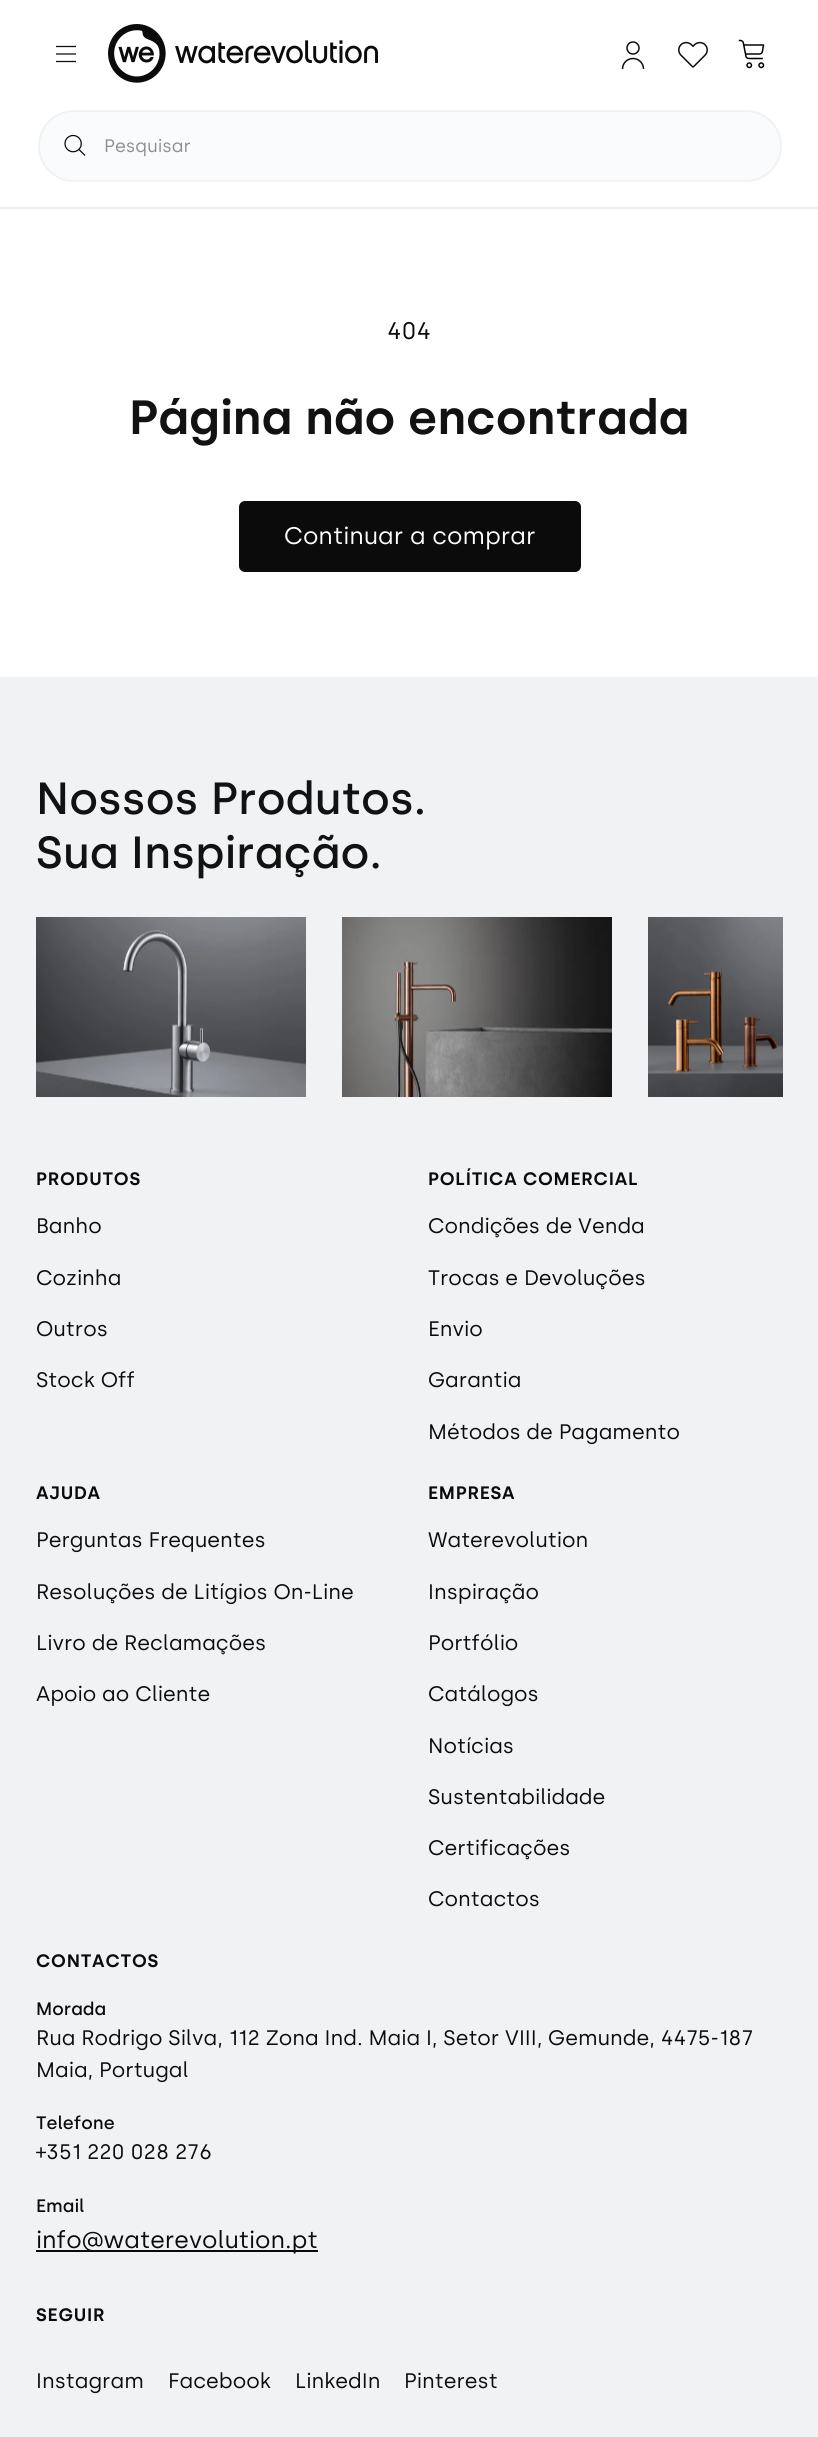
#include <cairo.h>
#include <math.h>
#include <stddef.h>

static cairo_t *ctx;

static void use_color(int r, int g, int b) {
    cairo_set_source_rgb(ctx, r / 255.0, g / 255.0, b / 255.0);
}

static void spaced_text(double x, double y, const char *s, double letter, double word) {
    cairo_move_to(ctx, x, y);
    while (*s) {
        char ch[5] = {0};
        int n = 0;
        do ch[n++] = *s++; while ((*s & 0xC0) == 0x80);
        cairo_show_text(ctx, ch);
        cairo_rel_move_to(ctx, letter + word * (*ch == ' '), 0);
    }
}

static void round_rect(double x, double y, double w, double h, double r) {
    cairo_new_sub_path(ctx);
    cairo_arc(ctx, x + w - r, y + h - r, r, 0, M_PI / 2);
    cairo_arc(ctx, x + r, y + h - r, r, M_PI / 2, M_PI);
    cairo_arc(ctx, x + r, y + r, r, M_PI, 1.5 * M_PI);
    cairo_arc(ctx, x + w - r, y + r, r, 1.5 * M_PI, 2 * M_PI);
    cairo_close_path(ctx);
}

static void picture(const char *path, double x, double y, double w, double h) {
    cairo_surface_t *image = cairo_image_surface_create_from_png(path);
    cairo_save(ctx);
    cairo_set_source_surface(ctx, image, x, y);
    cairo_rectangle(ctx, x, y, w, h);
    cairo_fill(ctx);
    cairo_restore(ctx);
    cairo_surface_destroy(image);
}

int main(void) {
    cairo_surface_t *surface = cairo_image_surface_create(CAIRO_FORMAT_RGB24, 818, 2437);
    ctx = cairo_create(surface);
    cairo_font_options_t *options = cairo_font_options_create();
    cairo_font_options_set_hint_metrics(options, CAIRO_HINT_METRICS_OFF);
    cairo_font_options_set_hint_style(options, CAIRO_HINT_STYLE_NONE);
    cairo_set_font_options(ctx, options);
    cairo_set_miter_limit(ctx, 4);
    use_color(255, 255, 255);
    cairo_paint(ctx);
    use_color(236, 236, 236);
    cairo_rectangle(ctx, 0, 207, 818, 2);
    cairo_fill(ctx);
    picture("img1.png", 56, 45, 20, 18);
    picture("img2.png", 108, 24, 270, 59);
    picture("img3.png", 621, 41, 24, 28);
    picture("img4.png", 678, 41, 30, 27);
    picture("img5.png", 738, 39, 27, 30);
    use_color(250, 251, 252);
    round_rect(39, 111, 742, 70, 35);
    cairo_fill_preserve(ctx);
    use_color(241, 242, 244);
    cairo_stroke(ctx);
    picture("img6.png", 64, 134, 22, 22);
    cairo_select_font_face(ctx, "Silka", CAIRO_FONT_SLANT_NORMAL, CAIRO_FONT_WEIGHT_NORMAL);
    cairo_set_font_size(ctx, 18);
    use_color(138, 143, 150);
    cairo_move_to(ctx, 104, 152);
    cairo_show_text(ctx, "Pesquisar");
    cairo_set_font_size(ctx, 24);
    use_color(11, 11, 12);
    cairo_move_to(ctx, 387, 339);
    cairo_show_text(ctx, "404");
    cairo_select_font_face(ctx, "Silka SemiBold", CAIRO_FONT_SLANT_NORMAL, CAIRO_FONT_WEIGHT_NORMAL);
    cairo_set_font_size(ctx, 48);
    use_color(18, 18, 18);
    cairo_move_to(ctx, 129, 434);
    cairo_show_text(ctx, "Página não encontrada");
    use_color(11, 11, 12);
    round_rect(239, 501, 342, 71, 6);
    cairo_fill(ctx);
    cairo_select_font_face(ctx, "Silka", CAIRO_FONT_SLANT_NORMAL, CAIRO_FONT_WEIGHT_NORMAL);
    cairo_set_font_size(ctx, 24);
    use_color(255, 255, 255);
    cairo_move_to(ctx, 284, 544);
    cairo_show_text(ctx, "Continuar a comprar");
    use_color(241, 242, 244);
    cairo_rectangle(ctx, 0, 677, 818, 1760);
    cairo_fill(ctx);
    cairo_select_font_face(ctx, "Silka Medium", CAIRO_FONT_SLANT_NORMAL, CAIRO_FONT_WEIGHT_NORMAL);
    cairo_set_font_size(ctx, 45);
    use_color(18, 18, 18);
    cairo_move_to(ctx, 36, 814);
    cairo_show_text(ctx, "Nossos Produtos.");
    cairo_move_to(ctx, 36, 868);
    cairo_show_text(ctx, "Sua Inspiração.");
    picture("img7.png", 36, 917, 270, 180);
    picture("img8.png", 342, 917, 270, 180);
    picture("img9.png", 648, 917, 135, 180);
    cairo_select_font_face(ctx, "Silka SemiBold", CAIRO_FONT_SLANT_NORMAL, CAIRO_FONT_WEIGHT_NORMAL);
    cairo_set_font_size(ctx, 18);
    use_color(11, 11, 12);
    spaced_text(36, 1185, "PRODUTOS", 0.75, 0);
    cairo_select_font_face(ctx, "Silka", CAIRO_FONT_SLANT_NORMAL, CAIRO_FONT_WEIGHT_NORMAL);
    cairo_set_font_size(ctx, 21);
    cairo_move_to(ctx, 36, 1233);
    cairo_show_text(ctx, "Banho");
    cairo_move_to(ctx, 36, 1285);
    cairo_show_text(ctx, "Cozinha");
    cairo_move_to(ctx, 36, 1336);
    cairo_show_text(ctx, "Outros");
    cairo_move_to(ctx, 36, 1387);
    cairo_show_text(ctx, "Stock Off");
    cairo_select_font_face(ctx, "Silka SemiBold", CAIRO_FONT_SLANT_NORMAL, CAIRO_FONT_WEIGHT_NORMAL);
    cairo_set_font_size(ctx, 18);
    spaced_text(428, 1185, "POLÍTICA COMERCIAL", 0.75, 0);
    cairo_select_font_face(ctx, "Silka", CAIRO_FONT_SLANT_NORMAL, CAIRO_FONT_WEIGHT_NORMAL);
    cairo_set_font_size(ctx, 21);
    cairo_move_to(ctx, 428, 1233);
    cairo_show_text(ctx, "Condições de Venda");
    cairo_move_to(ctx, 428, 1285);
    cairo_show_text(ctx, "Trocas e Devoluções");
    cairo_move_to(ctx, 428, 1336);
    cairo_show_text(ctx, "Envio");
    cairo_move_to(ctx, 428, 1387);
    cairo_show_text(ctx, "Garantia");
    cairo_move_to(ctx, 428, 1439);
    cairo_show_text(ctx, "Métodos de Pagamento");
    cairo_select_font_face(ctx, "Silka SemiBold", CAIRO_FONT_SLANT_NORMAL, CAIRO_FONT_WEIGHT_NORMAL);
    cairo_set_font_size(ctx, 18);
    spaced_text(36, 1499, "AJUDA", 0.75, 0);
    cairo_select_font_face(ctx, "Silka", CAIRO_FONT_SLANT_NORMAL, CAIRO_FONT_WEIGHT_NORMAL);
    cairo_set_font_size(ctx, 21);
    cairo_move_to(ctx, 36, 1547);
    cairo_show_text(ctx, "Perguntas Frequentes");
    cairo_move_to(ctx, 36, 1599);
    cairo_show_text(ctx, "Resoluções de Litígios On-Line");
    cairo_move_to(ctx, 36, 1650);
    cairo_show_text(ctx, "Livro de Reclamações");
    cairo_move_to(ctx, 36, 1701);
    cairo_show_text(ctx, "Apoio ao Cliente");
    cairo_select_font_face(ctx, "Silka SemiBold", CAIRO_FONT_SLANT_NORMAL, CAIRO_FONT_WEIGHT_NORMAL);
    cairo_set_font_size(ctx, 18);
    spaced_text(428, 1499, "EMPRESA", 0.75, 0);
    cairo_select_font_face(ctx, "Silka", CAIRO_FONT_SLANT_NORMAL, CAIRO_FONT_WEIGHT_NORMAL);
    cairo_set_font_size(ctx, 21);
    cairo_move_to(ctx, 428, 1547);
    cairo_show_text(ctx, "Waterevolution");
    cairo_move_to(ctx, 428, 1599);
    cairo_show_text(ctx, "Inspiração");
    cairo_move_to(ctx, 428, 1650);
    cairo_show_text(ctx, "Portfólio");
    cairo_move_to(ctx, 428, 1701);
    cairo_show_text(ctx, "Catálogos");
    cairo_move_to(ctx, 428, 1753);
    cairo_show_text(ctx, "Notícias");
    cairo_move_to(ctx, 428, 1804);
    cairo_show_text(ctx, "Sustentabilidade");
    cairo_move_to(ctx, 428, 1855);
    cairo_show_text(ctx, "Certificações");
    cairo_move_to(ctx, 428, 1906);
    cairo_show_text(ctx, "Contactos");
    cairo_select_font_face(ctx, "Silka SemiBold", CAIRO_FONT_SLANT_NORMAL, CAIRO_FONT_WEIGHT_NORMAL);
    cairo_set_font_size(ctx, 18);
    spaced_text(36, 1967, "CONTACTOS", 0.75, 0);
    cairo_select_font_face(ctx, "Silka Medium", CAIRO_FONT_SLANT_NORMAL, CAIRO_FONT_WEIGHT_NORMAL);
    cairo_move_to(ctx, 36, 2015);
    cairo_show_text(ctx, "Morada");
    cairo_select_font_face(ctx, "Silka", CAIRO_FONT_SLANT_NORMAL, CAIRO_FONT_WEIGHT_NORMAL);
    cairo_set_font_size(ctx, 21);
    cairo_move_to(ctx, 36, 2045);
    cairo_show_text(ctx, "Rua Rodrigo Silva, 112 Zona Ind. Maia I, Setor VIII, Gemunde, 4475-187");
    cairo_move_to(ctx, 36, 2077);
    cairo_show_text(ctx, "Maia, Portugal");
    cairo_select_font_face(ctx, "Silka Medium", CAIRO_FONT_SLANT_NORMAL, CAIRO_FONT_WEIGHT_NORMAL);
    cairo_set_font_size(ctx, 18);
    cairo_move_to(ctx, 36, 2129);
    cairo_show_text(ctx, "Telefone");
    cairo_select_font_face(ctx, "Silka", CAIRO_FONT_SLANT_NORMAL, CAIRO_FONT_WEIGHT_NORMAL);
    cairo_set_font_size(ctx, 21);
    cairo_move_to(ctx, 36, 2159);
    cairo_show_text(ctx, "+351 220 028 276");
    cairo_select_font_face(ctx, "Silka Medium", CAIRO_FONT_SLANT_NORMAL, CAIRO_FONT_WEIGHT_NORMAL);
    cairo_set_font_size(ctx, 18);
    cairo_move_to(ctx, 36, 2212);
    cairo_show_text(ctx, "Email");
    cairo_rectangle(ctx, 36, 2250, 282, 2);
    cairo_fill(ctx);
    cairo_select_font_face(ctx, "Silka", CAIRO_FONT_SLANT_NORMAL, CAIRO_FONT_WEIGHT_NORMAL);
    cairo_set_font_size(ctx, 24);
    cairo_move_to(ctx, 36, 2248);
    cairo_show_text(ctx, "info@waterevolution.pt");
    cairo_select_font_face(ctx, "Silka SemiBold", CAIRO_FONT_SLANT_NORMAL, CAIRO_FONT_WEIGHT_NORMAL);
    cairo_set_font_size(ctx, 18);
    spaced_text(36, 2321, "SEGUIR", 0.75, 0);
    cairo_select_font_face(ctx, "Silka", CAIRO_FONT_SLANT_NORMAL, CAIRO_FONT_WEIGHT_NORMAL);
    cairo_set_font_size(ctx, 21);
    cairo_move_to(ctx, 36, 2388);
    cairo_show_text(ctx, "Instagram");
    cairo_move_to(ctx, 168, 2388);
    cairo_show_text(ctx, "Facebook");
    cairo_move_to(ctx, 295, 2388);
    cairo_show_text(ctx, "LinkedIn");
    cairo_move_to(ctx, 404, 2388);
    cairo_show_text(ctx, "Pinterest");
    cairo_surface_write_to_png(surface, "result.png");
    cairo_font_options_destroy(options);
    cairo_destroy(ctx);
    cairo_surface_destroy(surface);
    return 0;
}
